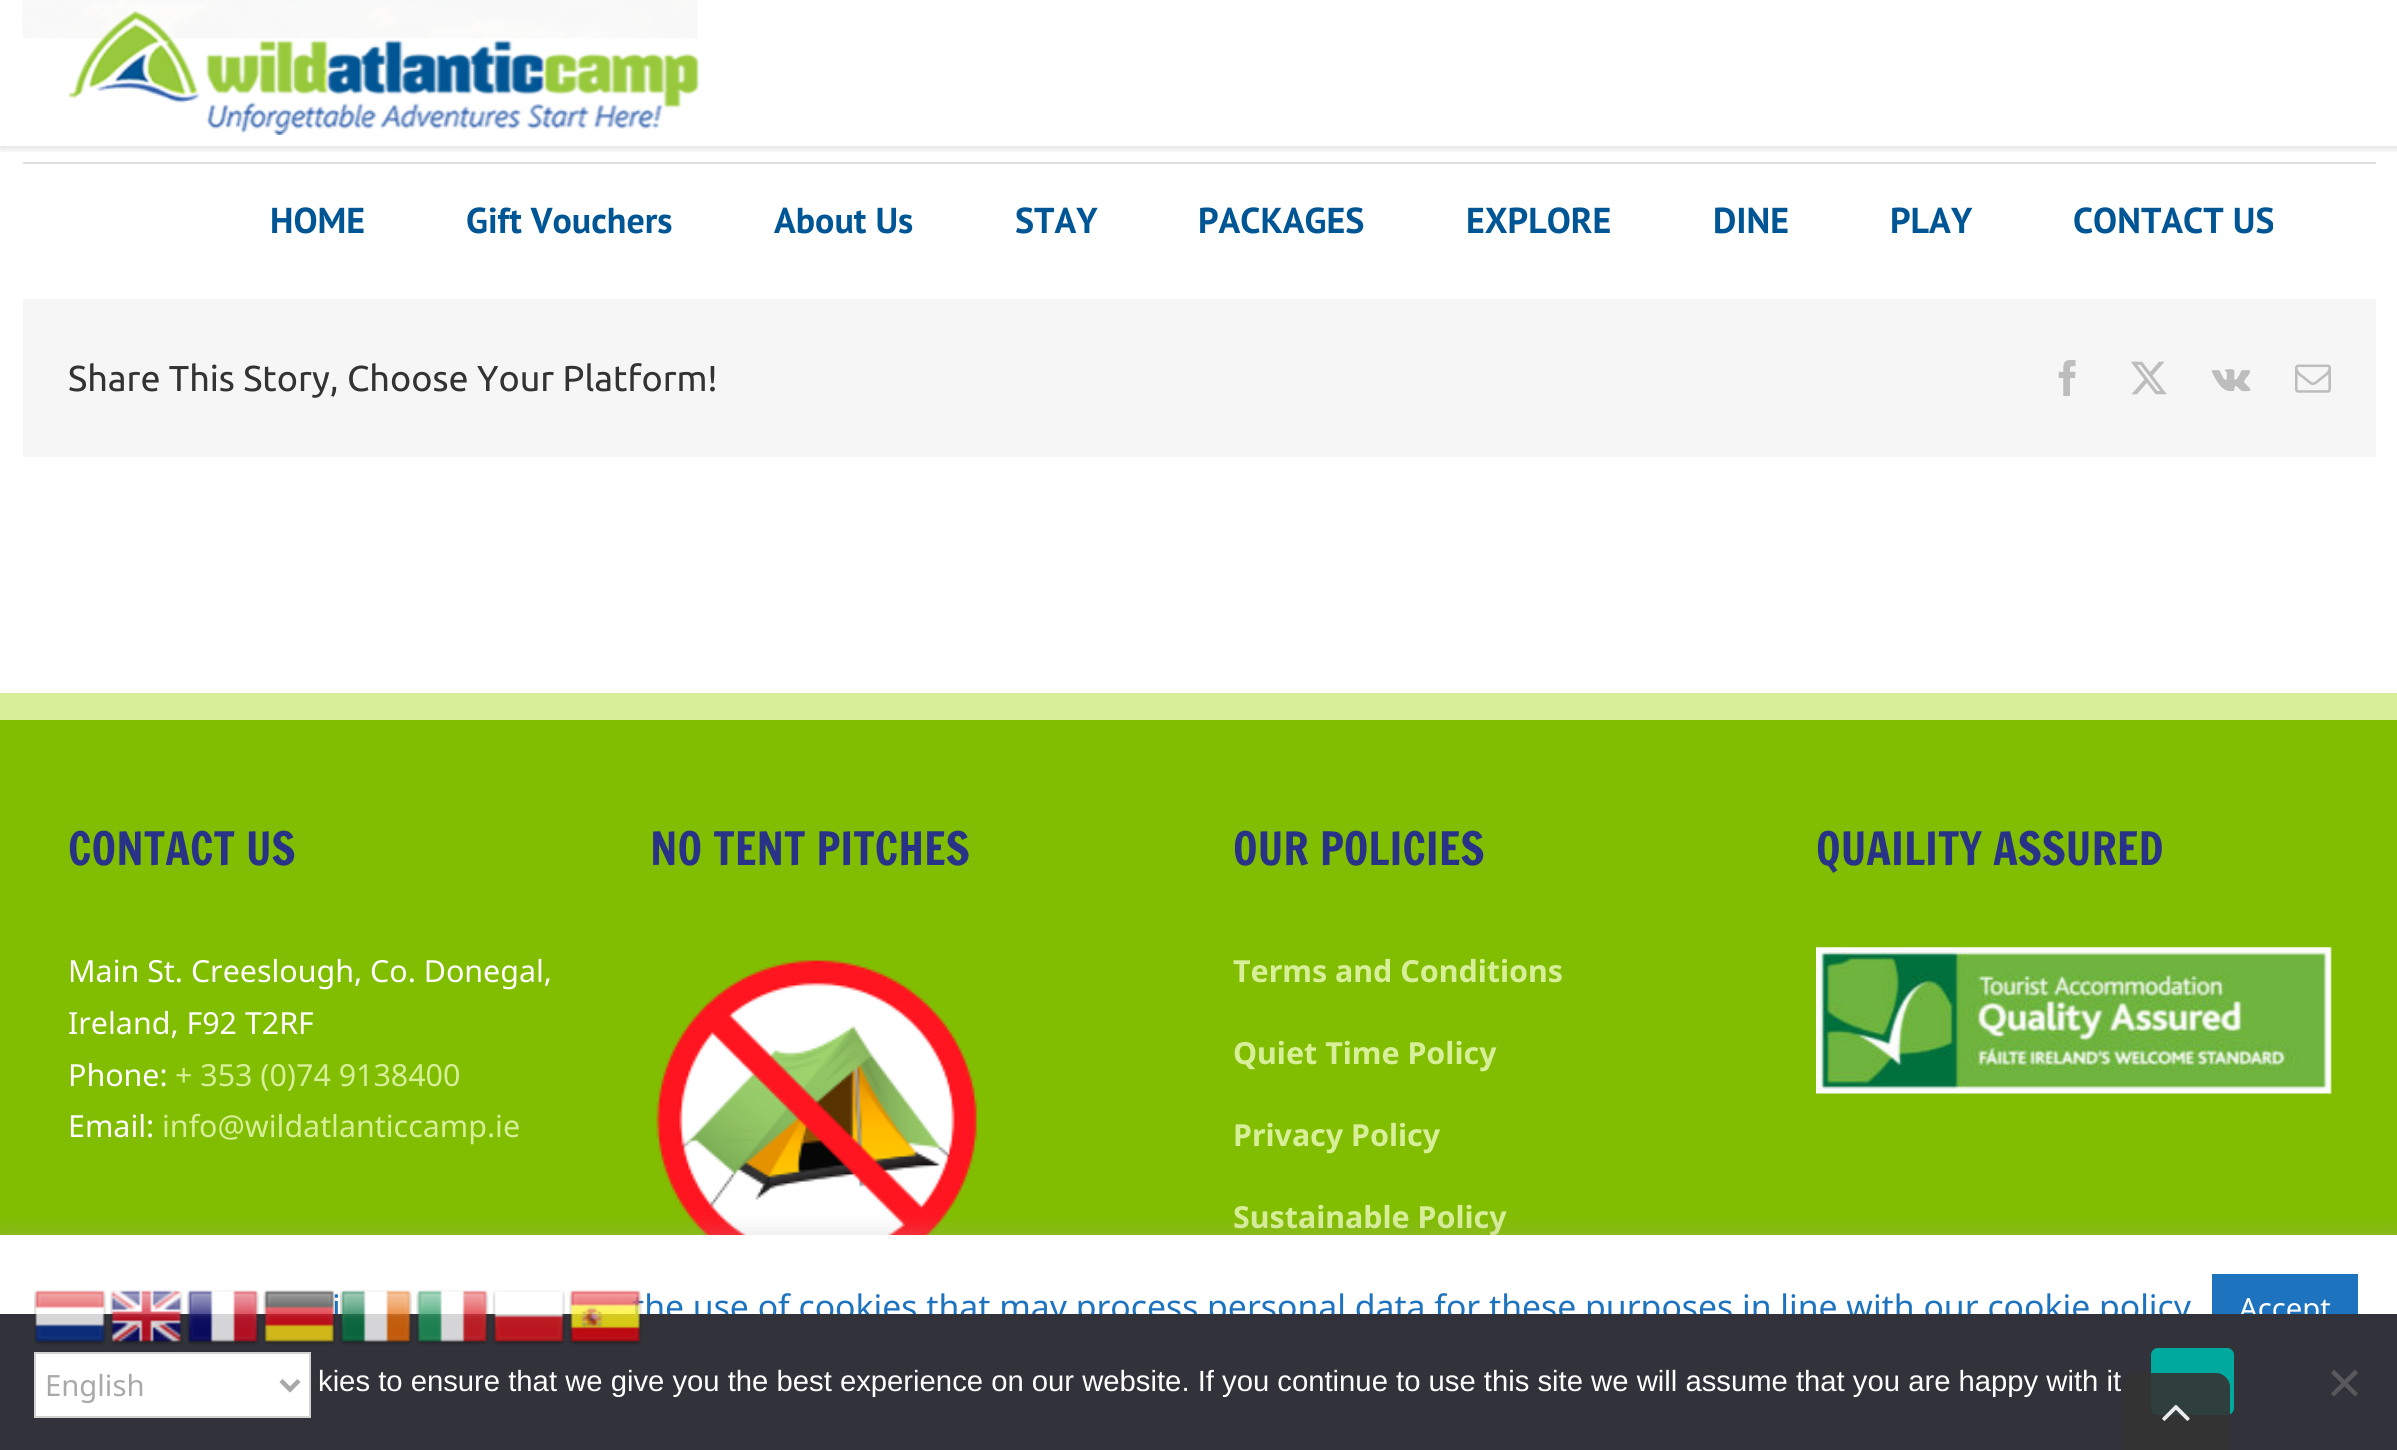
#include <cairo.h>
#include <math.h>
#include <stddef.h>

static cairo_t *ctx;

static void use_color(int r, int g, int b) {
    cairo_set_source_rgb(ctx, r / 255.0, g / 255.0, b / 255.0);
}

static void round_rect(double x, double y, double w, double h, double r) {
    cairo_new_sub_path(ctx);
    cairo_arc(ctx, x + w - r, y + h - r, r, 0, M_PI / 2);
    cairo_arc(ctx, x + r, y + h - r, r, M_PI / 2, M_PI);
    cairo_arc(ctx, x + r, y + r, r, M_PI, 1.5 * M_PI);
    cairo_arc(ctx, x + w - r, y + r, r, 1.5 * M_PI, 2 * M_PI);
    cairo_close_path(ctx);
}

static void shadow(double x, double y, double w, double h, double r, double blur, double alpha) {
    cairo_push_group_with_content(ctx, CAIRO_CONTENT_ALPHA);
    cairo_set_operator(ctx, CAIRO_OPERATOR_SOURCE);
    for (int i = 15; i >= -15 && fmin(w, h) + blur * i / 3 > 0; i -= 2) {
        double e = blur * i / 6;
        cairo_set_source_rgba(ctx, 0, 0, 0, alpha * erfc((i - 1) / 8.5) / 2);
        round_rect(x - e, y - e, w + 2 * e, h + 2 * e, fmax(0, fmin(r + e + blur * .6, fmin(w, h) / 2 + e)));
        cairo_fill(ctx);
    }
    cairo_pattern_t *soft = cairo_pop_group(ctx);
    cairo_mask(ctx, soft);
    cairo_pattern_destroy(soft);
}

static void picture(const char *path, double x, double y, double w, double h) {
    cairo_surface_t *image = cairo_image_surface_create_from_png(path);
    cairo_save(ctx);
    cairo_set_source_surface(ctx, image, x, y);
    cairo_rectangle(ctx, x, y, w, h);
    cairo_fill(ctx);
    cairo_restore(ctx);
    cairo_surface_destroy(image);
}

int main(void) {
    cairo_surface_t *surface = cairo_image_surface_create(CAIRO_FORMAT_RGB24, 2397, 1450);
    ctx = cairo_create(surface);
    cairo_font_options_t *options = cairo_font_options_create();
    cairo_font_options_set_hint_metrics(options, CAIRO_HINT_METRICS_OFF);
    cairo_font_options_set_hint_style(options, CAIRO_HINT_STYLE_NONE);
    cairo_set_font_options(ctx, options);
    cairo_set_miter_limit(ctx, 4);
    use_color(255, 255, 255);
    cairo_paint(ctx);
    picture("img2.png", 22, 0, 676, 39);
    cairo_save(ctx);
    cairo_rectangle(ctx, 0, 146, 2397, 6);
    cairo_clip(ctx);
    use_color(0, 0, 0);
    shadow(0, 2, 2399, 147, 0, 3.5, 0.12);
    cairo_restore(ctx);
    picture("img1.png", 68, 11, 631, 124);
    cairo_select_font_face(ctx, "PT Sans", CAIRO_FONT_SLANT_NORMAL, CAIRO_FONT_WEIGHT_BOLD);
    cairo_set_font_size(ctx, 36);
    use_color(0, 86, 148);
    cairo_move_to(ctx, 270, 233);
    cairo_show_text(ctx, "HOME");
    cairo_move_to(ctx, 466, 233);
    cairo_show_text(ctx, "Gift Vouchers");
    cairo_move_to(ctx, 774, 233);
    cairo_show_text(ctx, "About Us");
    cairo_move_to(ctx, 1015, 233);
    cairo_show_text(ctx, "STAY");
    cairo_move_to(ctx, 1198, 233);
    cairo_show_text(ctx, "PACKAGES");
    cairo_move_to(ctx, 1466, 233);
    cairo_show_text(ctx, "EXPLORE");
    cairo_move_to(ctx, 1713, 233);
    cairo_show_text(ctx, "DINE");
    cairo_move_to(ctx, 1890, 233);
    cairo_show_text(ctx, "PLAY");
    cairo_move_to(ctx, 2073, 233);
    cairo_show_text(ctx, "CONTACT US");
    use_color(224, 222, 222);
    cairo_rectangle(ctx, 23, 162, 2353, 2);
    cairo_fill(ctx);
    use_color(246, 246, 246);
    cairo_rectangle(ctx, 23, 299, 2353, 158);
    cairo_fill(ctx);
    cairo_select_font_face(ctx, "Ubuntu", CAIRO_FONT_SLANT_NORMAL, CAIRO_FONT_WEIGHT_NORMAL);
    use_color(51, 51, 51);
    cairo_move_to(ctx, 68, 391);
    cairo_show_text(ctx, "Share This Story, Choose Your Platform!");
    picture("img3.png", 2058, 360, 18, 36);
    picture("img4.png", 2131, 361, 36, 34);
    picture("img5.png", 2211, 369, 40, 23);
    picture("img6.png", 2295, 364, 36, 29);
    use_color(129, 189, 0);
    cairo_rectangle(ctx, 0, 720, 2397, 515);
    cairo_fill(ctx);
    use_color(216, 239, 153);
    cairo_rectangle(ctx, 0, 693, 2397, 27);
    cairo_fill(ctx);
    cairo_select_font_face(ctx, "Francois One", CAIRO_FONT_SLANT_NORMAL, CAIRO_FONT_WEIGHT_NORMAL);
    cairo_set_font_size(ctx, 45);
    use_color(40, 51, 135);
    cairo_move_to(ctx, 68, 865);
    cairo_show_text(ctx, "CONTACT US");
    cairo_select_font_face(ctx, "Noto Sans", CAIRO_FONT_SLANT_NORMAL, CAIRO_FONT_WEIGHT_NORMAL);
    cairo_set_font_size(ctx, 30.4);
    use_color(255, 255, 255);
    cairo_move_to(ctx, 68, 982);
    cairo_show_text(ctx, "Main St. Creeslough, Co. Donegal,");
    cairo_move_to(ctx, 68, 1034);
    cairo_show_text(ctx, "Ireland, F92 T2RF");
    cairo_move_to(ctx, 68, 1086);
    cairo_show_text(ctx, "Phone:");
    use_color(216, 239, 153);
    cairo_move_to(ctx, 175, 1086);
    cairo_show_text(ctx, "+ 353 (0)74 9138400");
    use_color(255, 255, 255);
    cairo_move_to(ctx, 68, 1137);
    cairo_show_text(ctx, "Email:");
    use_color(216, 239, 153);
    cairo_move_to(ctx, 162, 1137);
    cairo_show_text(ctx, "info@wildatlanticcamp.ie");
    cairo_select_font_face(ctx, "Francois One", CAIRO_FONT_SLANT_NORMAL, CAIRO_FONT_WEIGHT_NORMAL);
    cairo_set_font_size(ctx, 45);
    use_color(40, 51, 135);
    cairo_move_to(ctx, 650, 865);
    cairo_show_text(ctx, "NO TENT PITCHES");
    picture("img7.png", 656, 959, 322, 276);
    cairo_move_to(ctx, 1233, 865);
    cairo_show_text(ctx, "OUR POLICIES");
    cairo_select_font_face(ctx, "Noto Sans", CAIRO_FONT_SLANT_NORMAL, CAIRO_FONT_WEIGHT_BOLD);
    cairo_set_font_size(ctx, 30.4);
    use_color(216, 239, 153);
    cairo_move_to(ctx, 1233, 982);
    cairo_show_text(ctx, "Terms and Conditions");
    cairo_move_to(ctx, 1233, 1064);
    cairo_show_text(ctx, "Quiet Time Policy");
    cairo_move_to(ctx, 1233, 1146);
    cairo_show_text(ctx, "Privacy Policy");
    cairo_move_to(ctx, 1233, 1228);
    cairo_show_text(ctx, "Sustainable Policy");
    cairo_select_font_face(ctx, "Francois One", CAIRO_FONT_SLANT_NORMAL, CAIRO_FONT_WEIGHT_NORMAL);
    cairo_set_font_size(ctx, 45);
    use_color(40, 51, 135);
    cairo_move_to(ctx, 1816, 865);
    cairo_show_text(ctx, "QUAILITY ASSURED");
    picture("img8.png", 1816, 947, 516, 147);
    use_color(172, 171, 171);
    shadow(0, 1233, 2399, 216, 0, 11, 0.3);
    use_color(255, 255, 255);
    cairo_rectangle(ctx, 0, 1235, 2397, 79);
    cairo_fill(ctx);
    cairo_select_font_face(ctx, "Noto Sans", CAIRO_FONT_SLANT_NORMAL, CAIRO_FONT_WEIGHT_NORMAL);
    cairo_set_font_size(ctx, 33.75);
    use_color(30, 115, 190);
    cairo_move_to(ctx, 332, 1319);
    cairo_show_text(ctx, "i");
    cairo_move_to(ctx, 632, 1319);
    cairo_show_text(ctx, "the use of cookies that may process personal data for these purposes in line with our cookie policy");
    cairo_rectangle(ctx, 2212, 1274, 146, 40);
    cairo_fill(ctx);
    cairo_set_font_size(ctx, 29.25);
    use_color(255, 255, 255);
    cairo_move_to(ctx, 2239, 1319);
    cairo_show_text(ctx, "Accept");
    use_color(50, 50, 58);
    cairo_rectangle(ctx, 0, 1314, 2397, 136);
    cairo_fill(ctx);
    picture("img9.png", 34, 1290, 72, 55);
    picture("img10.png", 110, 1290, 73, 55);
    picture("img11.png", 186, 1290, 73, 55);
    picture("img12.png", 263, 1290, 73, 55);
    picture("img13.png", 339, 1290, 73, 55);
    picture("img14.png", 416, 1290, 73, 55);
    picture("img15.png", 492, 1290, 73, 55);
    picture("img16.png", 569, 1290, 73, 55);
    use_color(255, 255, 255);
    cairo_rectangle(ctx, 35, 1353, 275, 64);
    cairo_fill_preserve(ctx);
    use_color(210, 210, 210);
    cairo_stroke(ctx);
    cairo_new_path(ctx);
    cairo_move_to(ctx, 281, 1380.5);
    cairo_line_to(ctx, 290, 1389.5);
    cairo_line_to(ctx, 299, 1380.5);
    use_color(170, 169, 169);
    cairo_set_line_width(ctx, 4.5);
    cairo_stroke(ctx);
    cairo_move_to(ctx, 45, 1396);
    cairo_show_text(ctx, "English");
    cairo_select_font_face(ctx, "Liberation Sans", CAIRO_FONT_SLANT_NORMAL, CAIRO_FONT_WEIGHT_NORMAL);
    use_color(255, 255, 255);
    cairo_move_to(ctx, 318, 1391);
    cairo_show_text(ctx, "kies to ensure that we give you the best experience on our website. If you continue to use this site we will assume that you are happy with it");
    use_color(0, 169, 157);
    round_rect(2151, 1348, 83, 67, 7);
    cairo_fill(ctx);
    use_color(89, 89, 93);
    cairo_new_path(ctx);
    cairo_move_to(ctx, 2355, 1369.5);
    cairo_line_to(ctx, 2358, 1373);
    cairo_line_to(ctx, 2334, 1396.5);
    cairo_line_to(ctx, 2331, 1393.5);
    cairo_close_path(ctx);
    cairo_fill(ctx);
    cairo_new_path(ctx);
    cairo_move_to(ctx, 2331, 1373);
    cairo_line_to(ctx, 2334, 1369.5);
    cairo_line_to(ctx, 2358, 1393.5);
    cairo_line_to(ctx, 2355, 1396.5);
    cairo_close_path(ctx);
    cairo_fill(ctx);
    cairo_set_source_rgba(ctx, 0.2, 0.2, 0.2, 0.9);
    cairo_new_path(ctx);
    cairo_move_to(ctx, 2136, 1373);
    cairo_line_to(ctx, 2216, 1373);
    cairo_curve_to(ctx, 2223.5, 1373, 2230, 1379.5, 2230, 1387);
    cairo_line_to(ctx, 2230, 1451);
    cairo_line_to(ctx, 2122, 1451);
    cairo_line_to(ctx, 2122, 1387);
    cairo_curve_to(ctx, 2122, 1379.5, 2128.5, 1373, 2136, 1373);
    cairo_close_path(ctx);
    cairo_fill(ctx);
    picture("img17.png", 2162, 1404, 28, 17);
    cairo_surface_write_to_png(surface, "result.png");
    cairo_font_options_destroy(options);
    cairo_destroy(ctx);
    cairo_surface_destroy(surface);
    return 0;
}
